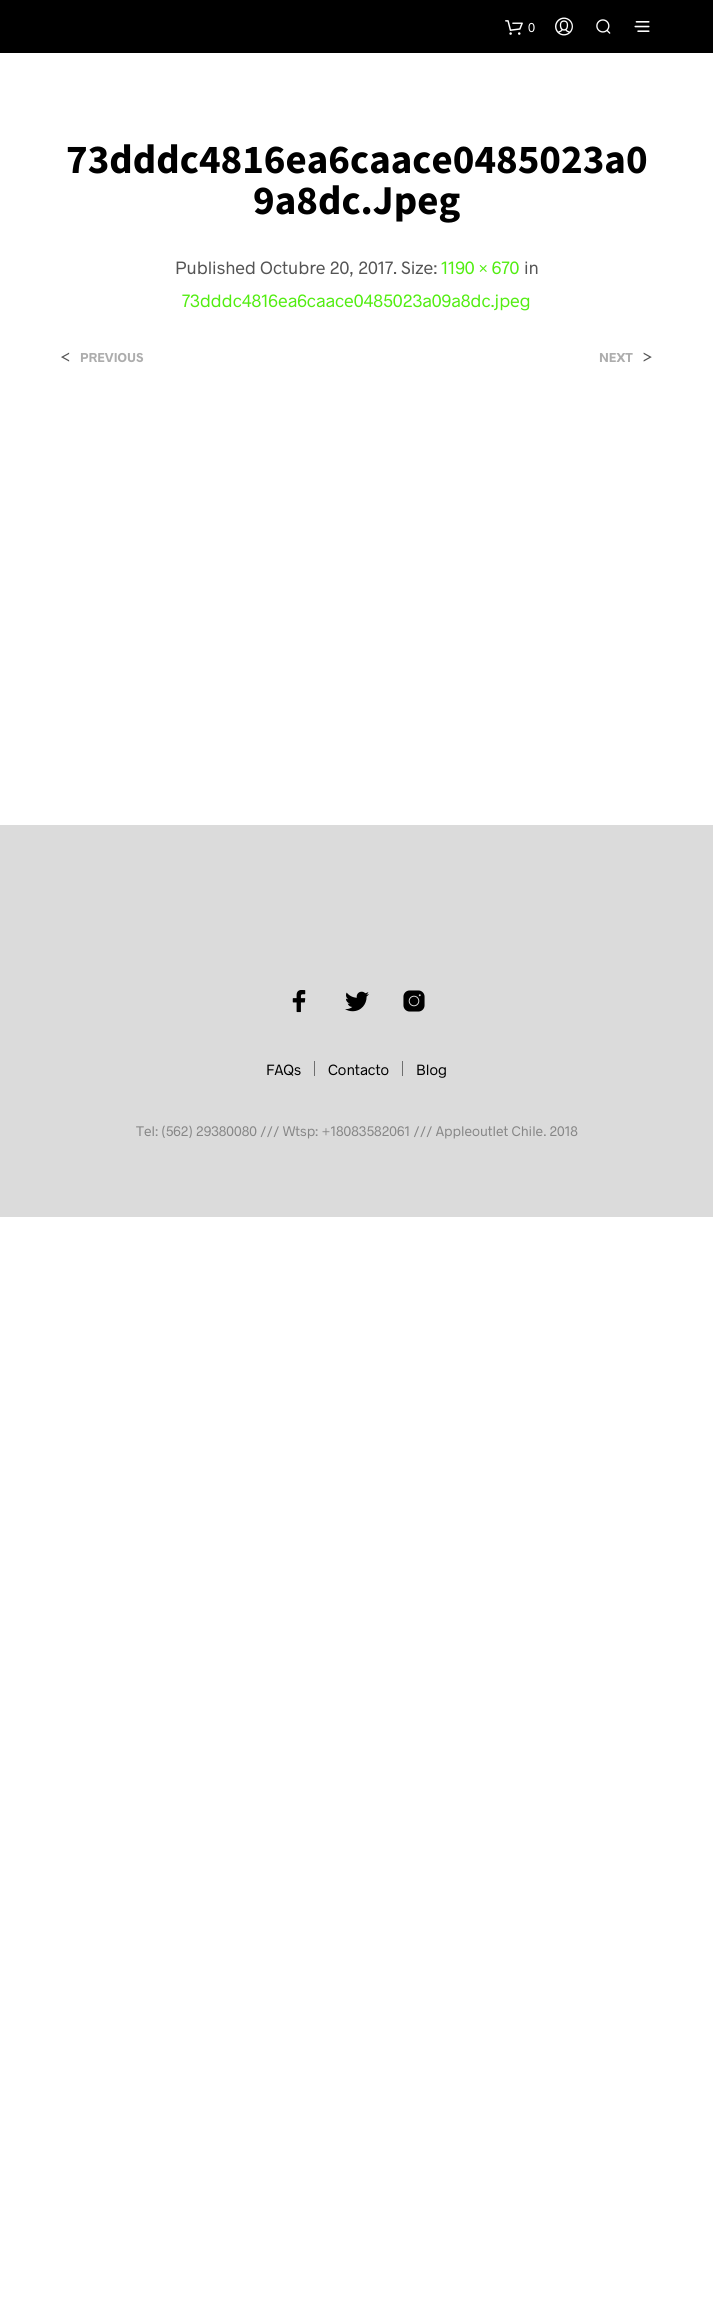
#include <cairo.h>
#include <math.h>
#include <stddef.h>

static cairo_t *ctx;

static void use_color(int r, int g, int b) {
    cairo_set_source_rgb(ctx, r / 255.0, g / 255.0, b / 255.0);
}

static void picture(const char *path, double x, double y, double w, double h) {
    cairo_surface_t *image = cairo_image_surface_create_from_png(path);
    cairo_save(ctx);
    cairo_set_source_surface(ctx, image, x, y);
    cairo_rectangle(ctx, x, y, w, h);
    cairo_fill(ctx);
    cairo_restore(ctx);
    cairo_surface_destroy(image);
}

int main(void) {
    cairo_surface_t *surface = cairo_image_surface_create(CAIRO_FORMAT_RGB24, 713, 2315);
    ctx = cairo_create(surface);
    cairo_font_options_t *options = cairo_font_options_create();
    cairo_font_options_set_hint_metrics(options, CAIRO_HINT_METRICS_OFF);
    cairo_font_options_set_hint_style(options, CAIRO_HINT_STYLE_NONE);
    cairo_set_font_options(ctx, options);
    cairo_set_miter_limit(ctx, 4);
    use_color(255, 255, 255);
    cairo_paint(ctx);
    use_color(0, 0, 0);
    cairo_rectangle(ctx, 0, 0, 713, 53);
    cairo_fill(ctx);
    picture("img1.png", 505, 20, 18, 15);
    cairo_select_font_face(ctx, "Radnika", CAIRO_FONT_SLANT_NORMAL, CAIRO_FONT_WEIGHT_NORMAL);
    cairo_set_font_size(ctx, 13);
    use_color(255, 255, 255);
    cairo_move_to(ctx, 528, 32);
    cairo_show_text(ctx, "0");
    picture("img2.png", 555, 17, 18, 19);
    picture("img3.png", 596, 19, 15, 15);
    picture("img4.png", 634, 21, 16, 11);
    cairo_select_font_face(ctx, "Source Sans Pro", CAIRO_FONT_SLANT_NORMAL, CAIRO_FONT_WEIGHT_BOLD);
    cairo_set_font_size(ctx, 41);
    use_color(0, 0, 0);
    cairo_move_to(ctx, 66, 173);
    cairo_show_text(ctx, "73dddc4816ea6caace0485023a0");
    cairo_move_to(ctx, 253, 214);
    cairo_show_text(ctx, "9a8dc.Jpeg");
    cairo_select_font_face(ctx, "Radnika", CAIRO_FONT_SLANT_NORMAL, CAIRO_FONT_WEIGHT_NORMAL);
    cairo_set_font_size(ctx, 18);
    use_color(84, 84, 84);
    cairo_move_to(ctx, 175, 274);
    cairo_show_text(ctx, "Published Octubre 20, 2017. Size:");
    use_color(82, 237, 17);
    cairo_move_to(ctx, 441, 274);
    cairo_show_text(ctx, "1190 × 670");
    use_color(84, 84, 84);
    cairo_move_to(ctx, 524, 274);
    cairo_show_text(ctx, "in");
    use_color(82, 237, 17);
    cairo_move_to(ctx, 182, 307);
    cairo_show_text(ctx, "73dddc4816ea6caace0485023a09a8dc.jpeg");
    use_color(84, 84, 84);
    cairo_move_to(ctx, 60, 363);
    cairo_show_text(ctx, "<");
    cairo_select_font_face(ctx, "Radnika", CAIRO_FONT_SLANT_NORMAL, CAIRO_FONT_WEIGHT_BOLD);
    cairo_set_font_size(ctx, 13);
    use_color(173, 173, 173);
    cairo_move_to(ctx, 80, 362);
    cairo_show_text(ctx, "PREVIOUS");
    cairo_move_to(ctx, 599, 362);
    cairo_show_text(ctx, "NEXT");
    cairo_select_font_face(ctx, "Radnika", CAIRO_FONT_SLANT_NORMAL, CAIRO_FONT_WEIGHT_NORMAL);
    cairo_set_font_size(ctx, 18);
    use_color(84, 84, 84);
    cairo_move_to(ctx, 642, 363);
    cairo_show_text(ctx, ">");
    use_color(219, 219, 219);
    cairo_rectangle(ctx, 0, 825, 713, 392);
    cairo_fill(ctx);
    picture("img5.png", 292, 990, 14, 23);
    picture("img6.png", 345, 991, 24, 21);
    picture("img7.png", 403, 990, 22, 22);
    cairo_set_font_size(ctx, 15);
    use_color(0, 0, 0);
    cairo_move_to(ctx, 266, 1075);
    cairo_show_text(ctx, "FAQs");
    use_color(110, 110, 110);
    cairo_rectangle(ctx, 314, 1061, 1, 15);
    cairo_fill(ctx);
    use_color(0, 0, 0);
    cairo_move_to(ctx, 328, 1075);
    cairo_show_text(ctx, "Contacto");
    use_color(110, 110, 110);
    cairo_rectangle(ctx, 402, 1061, 1, 15);
    cairo_fill(ctx);
    use_color(0, 0, 0);
    cairo_move_to(ctx, 416, 1075);
    cairo_show_text(ctx, "Blog");
    cairo_set_font_size(ctx, 14);
    use_color(134, 134, 134);
    cairo_move_to(ctx, 136, 1136);
    cairo_show_text(ctx, "Tel: (562) 29380080 /// Wtsp: +18083582061 /// Appleoutlet Chile. 2018");
    cairo_surface_write_to_png(surface, "result.png");
    cairo_font_options_destroy(options);
    cairo_destroy(ctx);
    cairo_surface_destroy(surface);
    return 0;
}
